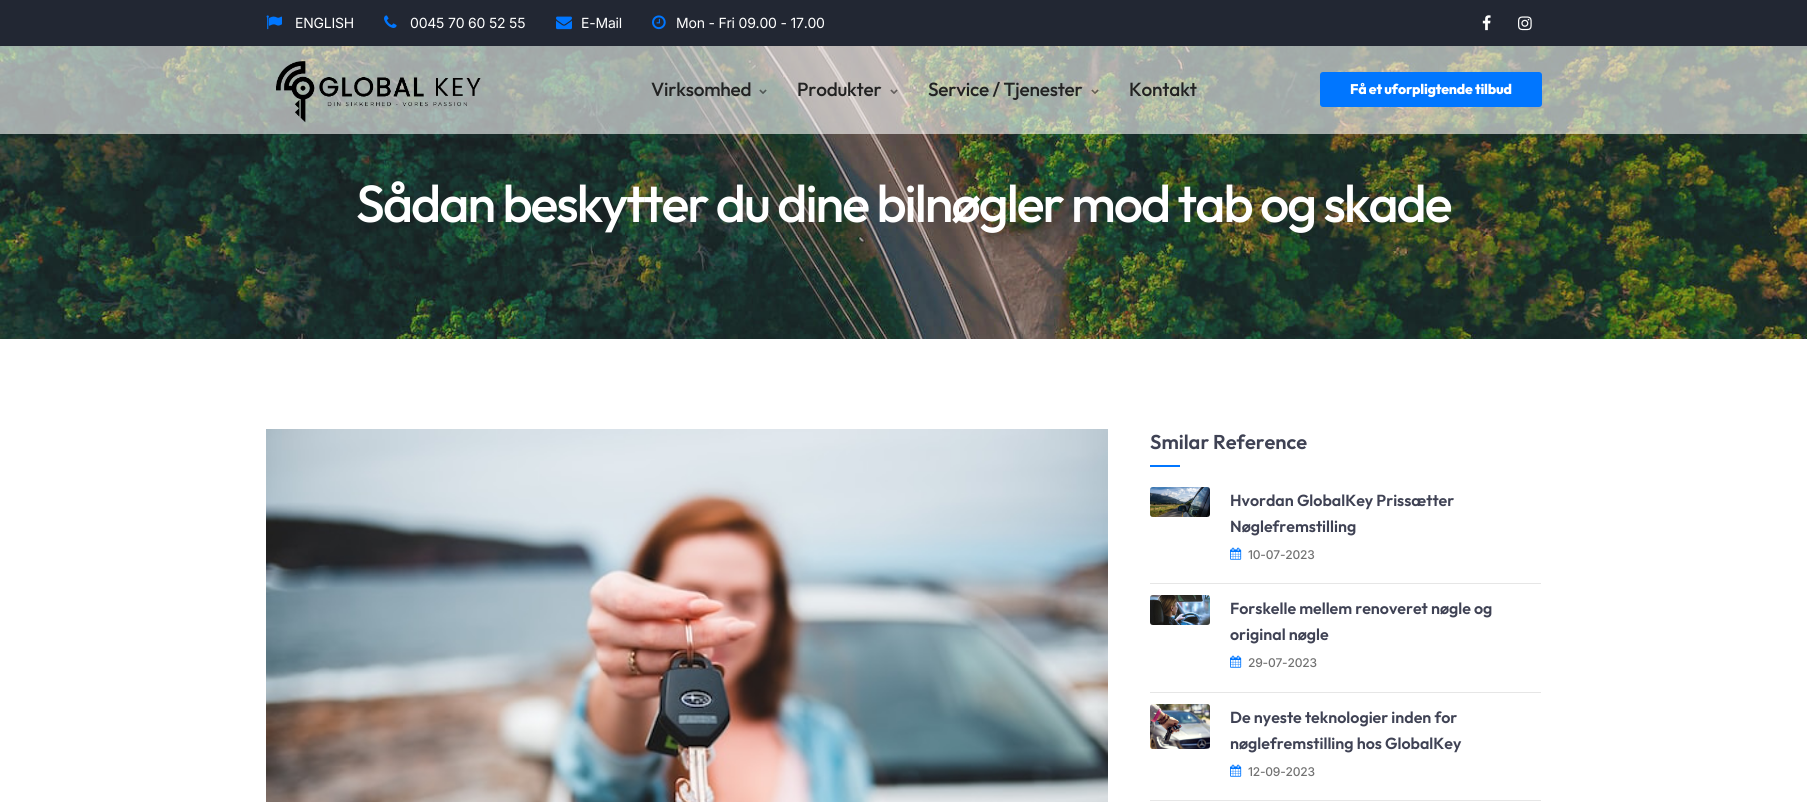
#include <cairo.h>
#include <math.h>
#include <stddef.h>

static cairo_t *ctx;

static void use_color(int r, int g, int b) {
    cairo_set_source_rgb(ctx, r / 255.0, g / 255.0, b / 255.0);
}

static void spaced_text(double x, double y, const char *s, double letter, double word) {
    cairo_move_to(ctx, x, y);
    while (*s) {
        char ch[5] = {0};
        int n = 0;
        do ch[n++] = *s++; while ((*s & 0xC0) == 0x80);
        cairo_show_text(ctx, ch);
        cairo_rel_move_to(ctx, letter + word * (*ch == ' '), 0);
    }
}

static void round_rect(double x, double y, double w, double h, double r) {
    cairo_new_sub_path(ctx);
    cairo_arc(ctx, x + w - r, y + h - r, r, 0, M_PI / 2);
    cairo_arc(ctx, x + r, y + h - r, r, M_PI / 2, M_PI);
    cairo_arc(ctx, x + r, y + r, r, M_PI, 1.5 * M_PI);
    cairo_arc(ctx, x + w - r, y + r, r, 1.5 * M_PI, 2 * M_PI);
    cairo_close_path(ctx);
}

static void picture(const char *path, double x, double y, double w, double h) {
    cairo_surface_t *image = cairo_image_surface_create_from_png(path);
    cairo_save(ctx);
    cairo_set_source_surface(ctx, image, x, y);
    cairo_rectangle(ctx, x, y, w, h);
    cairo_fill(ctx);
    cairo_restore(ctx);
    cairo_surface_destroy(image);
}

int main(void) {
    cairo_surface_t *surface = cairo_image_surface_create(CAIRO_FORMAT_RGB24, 1807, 802);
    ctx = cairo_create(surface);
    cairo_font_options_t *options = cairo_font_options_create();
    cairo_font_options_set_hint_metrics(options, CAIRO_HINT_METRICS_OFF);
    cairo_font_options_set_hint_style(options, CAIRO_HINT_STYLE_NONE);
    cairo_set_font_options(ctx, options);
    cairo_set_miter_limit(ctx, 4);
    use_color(255, 255, 255);
    cairo_paint(ctx);
    picture("img11.png", 0, 46, 1807, 293);
    cairo_set_source_rgba(ctx, 1, 1, 1, 0.6);
    cairo_rectangle(ctx, 0, 46, 1807, 88);
    cairo_fill(ctx);
    use_color(34, 39, 51);
    cairo_rectangle(ctx, 0, 0, 1807, 46);
    cairo_fill(ctx);
    picture("img1.png", 266, 15, 16, 15);
    cairo_select_font_face(ctx, "Inter", CAIRO_FONT_SLANT_NORMAL, CAIRO_FONT_WEIGHT_NORMAL);
    cairo_set_font_size(ctx, 14);
    use_color(255, 255, 255);
    spaced_text(295, 28, "ENGLISH", -0.2, 0);
    picture("img2.png", 384, 15, 13, 13);
    spaced_text(410, 28, "0045 70 60 52 55", -0.2, 0);
    picture("img3.png", 556, 16, 16, 14);
    spaced_text(581, 28, "E-Mail", -0.2, 0);
    picture("img4.png", 652, 15, 14, 15);
    spaced_text(676, 28, "Mon - Fri 09.00 - 17.00", -0.2, 0);
    picture("img5.png", 1482, 15, 9, 16);
    picture("img6.png", 1518, 16, 14, 15);
    picture("img7.png", 276, 61, 205, 62);
    cairo_select_font_face(ctx, "Outfit Medium", CAIRO_FONT_SLANT_NORMAL, CAIRO_FONT_WEIGHT_NORMAL);
    cairo_set_font_size(ctx, 19);
    use_color(34, 34, 34);
    spaced_text(651, 96, "Virksomhed", -0.2, 0);
    picture("img8.png", 759, 89, 8, 5);
    spaced_text(797, 96, "Produkter", -0.2, 0);
    picture("img9.png", 890, 89, 8, 5);
    spaced_text(928, 96, "Service / Tjenester", -0.2, 0);
    picture("img10.png", 1091, 89, 8, 5);
    spaced_text(1129, 96, "Kontakt", -0.2, 0);
    use_color(0, 118, 255);
    round_rect(1320, 72, 222, 35, 3);
    cairo_fill(ctx);
    cairo_select_font_face(ctx, "Outfit ExtraBold", CAIRO_FONT_SLANT_NORMAL, CAIRO_FONT_WEIGHT_NORMAL);
    cairo_set_font_size(ctx, 14);
    use_color(255, 255, 255);
    spaced_text(1350, 94, "Få et uforpligtende tilbud", -0.2, 0);
    cairo_select_font_face(ctx, "Outfit Medium", CAIRO_FONT_SLANT_NORMAL, CAIRO_FONT_WEIGHT_NORMAL);
    cairo_set_font_size(ctx, 52);
    spaced_text(356, 222, "Sådan beskytter du dine bilnøgler mod tab og skade", -2, 0);
    picture("img12.png", 266, 429, 842, 373);
    cairo_select_font_face(ctx, "Outfit SemiBold", CAIRO_FONT_SLANT_NORMAL, CAIRO_FONT_WEIGHT_NORMAL);
    cairo_set_font_size(ctx, 20);
    use_color(63, 66, 84);
    cairo_move_to(ctx, 1150, 449);
    cairo_show_text(ctx, "Smilar Reference");
    use_color(0, 118, 255);
    cairo_rectangle(ctx, 1150, 465, 30, 2);
    cairo_fill(ctx);
    picture("img13.png", 1150, 487, 60, 30);
    use_color(230, 230, 230);
    cairo_rectangle(ctx, 1150, 583, 391, 1);
    cairo_fill(ctx);
    cairo_set_font_size(ctx, 16);
    use_color(63, 66, 84);
    cairo_move_to(ctx, 1230, 506);
    cairo_show_text(ctx, "Hvordan GlobalKey Prissætter");
    cairo_move_to(ctx, 1230, 532);
    cairo_show_text(ctx, "Nøglefremstilling");
    picture("img14.png", 1230, 547, 12, 13);
    cairo_select_font_face(ctx, "Inter Medium", CAIRO_FONT_SLANT_NORMAL, CAIRO_FONT_WEIGHT_NORMAL);
    cairo_set_font_size(ctx, 12);
    use_color(114, 114, 114);
    spaced_text(1248, 559, "10-07-2023", -0.2, 0);
    picture("img15.png", 1150, 595, 60, 30);
    use_color(230, 230, 230);
    cairo_rectangle(ctx, 1150, 692, 391, 1);
    cairo_fill(ctx);
    cairo_select_font_face(ctx, "Outfit SemiBold", CAIRO_FONT_SLANT_NORMAL, CAIRO_FONT_WEIGHT_NORMAL);
    cairo_set_font_size(ctx, 16);
    use_color(63, 66, 84);
    cairo_move_to(ctx, 1230, 614);
    cairo_show_text(ctx, "Forskelle mellem renoveret nøgle og");
    cairo_move_to(ctx, 1230, 640);
    cairo_show_text(ctx, "original nøgle");
    picture("img14.png", 1230, 655, 12, 13);
    cairo_select_font_face(ctx, "Inter Medium", CAIRO_FONT_SLANT_NORMAL, CAIRO_FONT_WEIGHT_NORMAL);
    cairo_set_font_size(ctx, 12);
    use_color(114, 114, 114);
    spaced_text(1248, 667, "29-07-2023", -0.2, 0);
    picture("img16.png", 1150, 704, 60, 45);
    use_color(230, 230, 230);
    cairo_rectangle(ctx, 1150, 800, 391, 1);
    cairo_fill(ctx);
    cairo_select_font_face(ctx, "Outfit SemiBold", CAIRO_FONT_SLANT_NORMAL, CAIRO_FONT_WEIGHT_NORMAL);
    cairo_set_font_size(ctx, 16);
    use_color(63, 66, 84);
    cairo_move_to(ctx, 1230, 723);
    cairo_show_text(ctx, "De nyeste teknologier inden for");
    cairo_move_to(ctx, 1230, 749);
    cairo_show_text(ctx, "nøglefremstilling hos GlobalKey");
    picture("img14.png", 1230, 764, 12, 13);
    cairo_select_font_face(ctx, "Inter Medium", CAIRO_FONT_SLANT_NORMAL, CAIRO_FONT_WEIGHT_NORMAL);
    cairo_set_font_size(ctx, 12);
    use_color(114, 114, 114);
    spaced_text(1248, 776, "12-09-2023", -0.2, 0);
    cairo_surface_write_to_png(surface, "result.png");
    cairo_font_options_destroy(options);
    cairo_destroy(ctx);
    cairo_surface_destroy(surface);
    return 0;
}
